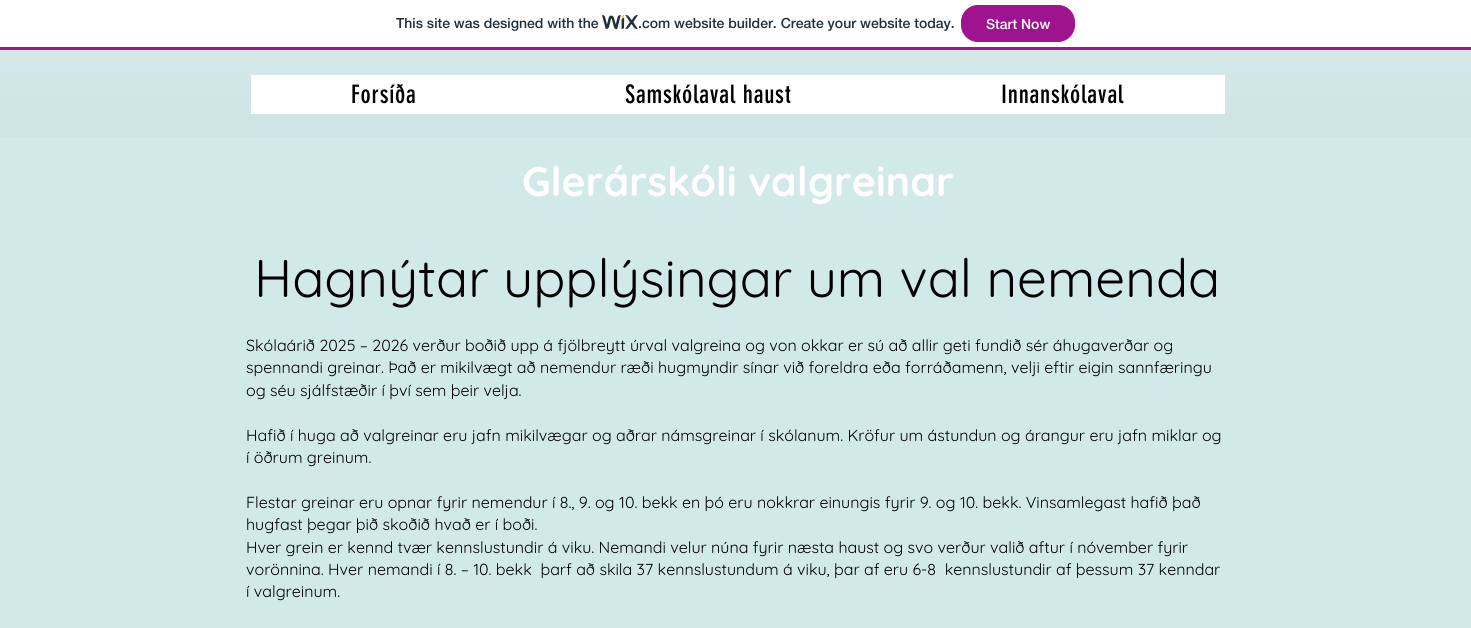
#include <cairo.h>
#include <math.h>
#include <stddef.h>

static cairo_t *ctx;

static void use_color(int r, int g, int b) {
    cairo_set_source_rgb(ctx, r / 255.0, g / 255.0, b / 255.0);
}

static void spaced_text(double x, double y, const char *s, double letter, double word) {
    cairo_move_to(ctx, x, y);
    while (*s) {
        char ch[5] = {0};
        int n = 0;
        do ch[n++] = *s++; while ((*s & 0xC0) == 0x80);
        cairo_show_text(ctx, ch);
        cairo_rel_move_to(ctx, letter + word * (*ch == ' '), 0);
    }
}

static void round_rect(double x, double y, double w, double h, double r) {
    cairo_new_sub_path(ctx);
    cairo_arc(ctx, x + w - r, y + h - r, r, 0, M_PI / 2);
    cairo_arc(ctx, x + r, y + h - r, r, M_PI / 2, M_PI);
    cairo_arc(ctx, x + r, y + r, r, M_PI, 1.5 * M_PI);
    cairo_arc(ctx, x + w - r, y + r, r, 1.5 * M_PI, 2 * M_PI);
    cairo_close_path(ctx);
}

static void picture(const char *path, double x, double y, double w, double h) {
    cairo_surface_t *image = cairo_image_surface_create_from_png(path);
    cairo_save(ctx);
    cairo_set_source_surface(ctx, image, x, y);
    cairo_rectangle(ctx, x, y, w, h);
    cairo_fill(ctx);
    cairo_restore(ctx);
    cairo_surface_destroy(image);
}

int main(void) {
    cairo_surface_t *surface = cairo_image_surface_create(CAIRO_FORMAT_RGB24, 1471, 628);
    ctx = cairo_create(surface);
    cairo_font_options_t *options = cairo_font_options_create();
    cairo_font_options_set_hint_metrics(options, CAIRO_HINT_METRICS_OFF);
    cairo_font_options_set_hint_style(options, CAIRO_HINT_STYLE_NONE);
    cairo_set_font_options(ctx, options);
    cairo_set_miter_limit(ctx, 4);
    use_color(255, 255, 255);
    cairo_paint(ctx);
    use_color(160, 19, 142);
    cairo_rectangle(ctx, 0, 47, 1471, 3);
    cairo_fill(ctx);
    cairo_select_font_face(ctx, "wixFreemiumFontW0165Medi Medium", CAIRO_FONT_SLANT_NORMAL, CAIRO_FONT_WEIGHT_NORMAL);
    cairo_set_font_size(ctx, 14);
    use_color(32, 48, 60);
    cairo_move_to(ctx, 396, 28);
    cairo_show_text(ctx, "This site was designed with the");
    picture("img1.png", 602, 15, 36, 15);
    cairo_move_to(ctx, 638, 28);
    cairo_show_text(ctx, ".com website builder. Create your website today.");
    use_color(160, 19, 142);
    round_rect(961.5, 5.5, 113, 36, 16.5);
    cairo_fill_preserve(ctx);
    cairo_set_line_width(ctx, 1);
    cairo_stroke(ctx);
    use_color(255, 255, 255);
    cairo_move_to(ctx, 986, 29);
    cairo_show_text(ctx, "Start Now");
    use_color(196, 223, 223);
    cairo_rectangle(ctx, 0, 50, 1471, 87);
    cairo_fill(ctx);
    picture("img2.png", 0, 50, 1471, 87);
    use_color(255, 255, 255);
    cairo_rectangle(ctx, 251, 75, 974, 39);
    cairo_fill(ctx);
    cairo_select_font_face(ctx, "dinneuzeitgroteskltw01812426", CAIRO_FONT_SLANT_NORMAL, CAIRO_FONT_WEIGHT_NORMAL);
    cairo_set_font_size(ctx, 25);
    use_color(0, 0, 0);
    spaced_text(351, 103, "Forsíða", 0.75, 0);
    spaced_text(625, 103, "Samskólaval haust", 0.75, 0);
    spaced_text(1001, 103, "Innanskólaval", 0.75, 0);
    use_color(210, 233, 233);
    cairo_rectangle(ctx, 0, 137, 1471, 491);
    cairo_fill(ctx);
    cairo_select_font_face(ctx, "Quicksand", CAIRO_FONT_SLANT_NORMAL, CAIRO_FONT_WEIGHT_BOLD);
    cairo_set_font_size(ctx, 41);
    use_color(255, 255, 255);
    cairo_move_to(ctx, 522, 196);
    cairo_show_text(ctx, "Glerárskóli valgreinar");
    cairo_select_font_face(ctx, "Quicksand", CAIRO_FONT_SLANT_NORMAL, CAIRO_FONT_WEIGHT_NORMAL);
    cairo_set_font_size(ctx, 53);
    use_color(0, 0, 0);
    cairo_move_to(ctx, 254, 297);
    cairo_show_text(ctx, "Hagnýtar upplýsingar um val nemenda");
    cairo_set_font_size(ctx, 16);
    cairo_move_to(ctx, 246, 351);
    cairo_show_text(ctx, "Skólaárið 2025 – 2026 verður boðið upp á fjölbreytt úrval valgreina og von okkar er sú að allir geti fundið sér áhugaverðar og");
    cairo_move_to(ctx, 246, 373);
    cairo_show_text(ctx, "spennandi greinar. Það er mikilvægt að nemendur ræði hugmyndir sínar við foreldra eða forráðamenn, velji eftir eigin sannfæringu");
    cairo_move_to(ctx, 246, 396);
    cairo_show_text(ctx, "og séu sjálfstæðir í því sem þeir velja.");
    cairo_move_to(ctx, 246, 441);
    cairo_show_text(ctx, "Hafið í huga að valgreinar eru jafn mikilvægar og aðrar námsgreinar í skólanum. Kröfur um ástundun og árangur eru jafn miklar og");
    cairo_move_to(ctx, 246, 463);
    cairo_show_text(ctx, "í öðrum greinum.");
    cairo_move_to(ctx, 246, 508);
    cairo_show_text(ctx, "Flestar greinar eru opnar fyrir nemendur í 8., 9. og 10. bekk en þó eru nokkrar einungis fyrir 9. og 10. bekk. Vinsamlegast hafið það");
    cairo_move_to(ctx, 246, 530);
    cairo_show_text(ctx, "hugfast þegar þið skoðið hvað er í boði.");
    cairo_move_to(ctx, 246, 553);
    cairo_show_text(ctx, "Hver grein er kennd tvær kennslustundir á viku. Nemandi velur núna fyrir næsta haust og svo verður valið aftur í nóvember fyrir");
    cairo_move_to(ctx, 246, 575);
    cairo_show_text(ctx, "vorönnina. Hver nemandi í 8. – 10. bekk  þarf að skila 37 kennslustundum á viku, þar af eru 6-8  kennslustundir af þessum 37 kenndar");
    cairo_move_to(ctx, 246, 597);
    cairo_show_text(ctx, "í valgreinum.");
    cairo_surface_write_to_png(surface, "result.png");
    cairo_font_options_destroy(options);
    cairo_destroy(ctx);
    cairo_surface_destroy(surface);
    return 0;
}
